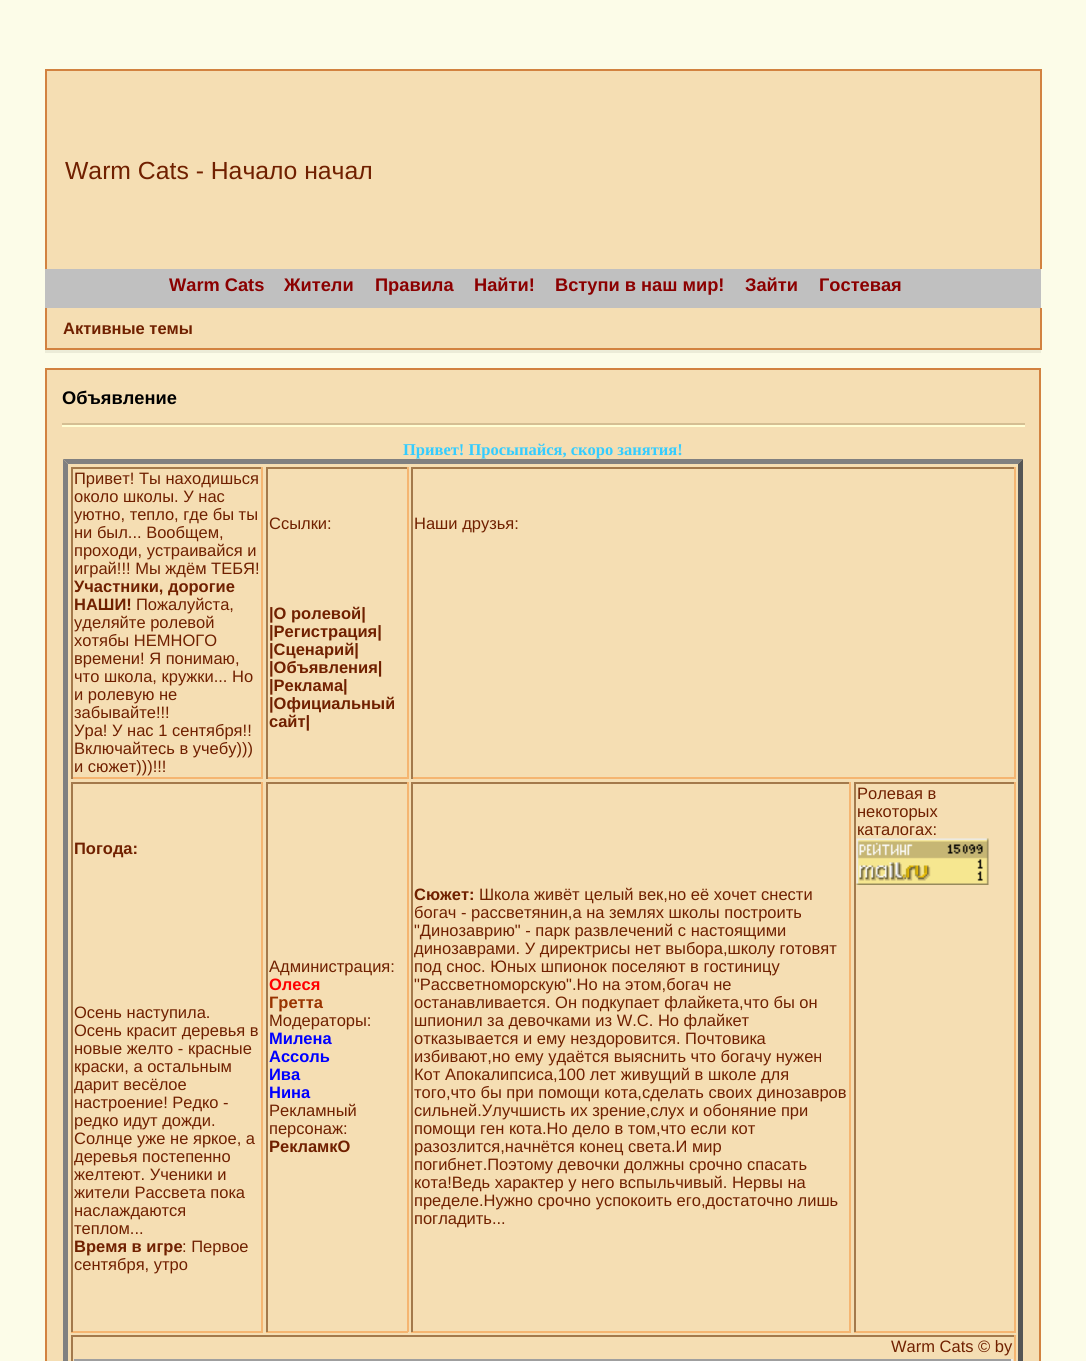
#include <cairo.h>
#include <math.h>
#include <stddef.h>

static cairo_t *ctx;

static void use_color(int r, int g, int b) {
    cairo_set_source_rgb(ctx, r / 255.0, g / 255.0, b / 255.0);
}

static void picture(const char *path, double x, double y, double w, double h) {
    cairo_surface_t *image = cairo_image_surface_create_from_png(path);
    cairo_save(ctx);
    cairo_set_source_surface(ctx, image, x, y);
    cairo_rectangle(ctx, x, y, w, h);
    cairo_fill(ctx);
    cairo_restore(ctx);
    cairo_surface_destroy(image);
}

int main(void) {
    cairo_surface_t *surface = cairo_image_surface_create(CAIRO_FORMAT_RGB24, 1086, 1361);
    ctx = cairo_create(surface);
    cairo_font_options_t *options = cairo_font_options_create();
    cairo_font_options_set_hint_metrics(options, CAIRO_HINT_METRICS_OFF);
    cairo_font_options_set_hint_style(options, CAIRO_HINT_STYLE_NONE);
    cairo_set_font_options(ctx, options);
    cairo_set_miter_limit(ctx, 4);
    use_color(252, 252, 232);
    cairo_paint(ctx);
    use_color(245, 222, 179);
    cairo_rectangle(ctx, 47, 71, 993, 198);
    cairo_fill(ctx);
    use_color(210, 130, 64);
    cairo_rectangle(ctx, 45, 69, 996, 2);
    cairo_fill(ctx);
    cairo_rectangle(ctx, 1040, 69, 2, 200);
    cairo_fill(ctx);
    cairo_rectangle(ctx, 45, 69, 2, 200);
    cairo_fill(ctx);
    cairo_select_font_face(ctx, "Liberation Sans", CAIRO_FONT_SLANT_NORMAL, CAIRO_FONT_WEIGHT_NORMAL);
    cairo_set_font_size(ctx, 24.75);
    use_color(112, 32, 0);
    cairo_move_to(ctx, 65, 179);
    cairo_show_text(ctx, "Warm Cats - Начало начал");
    use_color(192, 192, 192);
    cairo_rectangle(ctx, 45, 269, 996, 39);
    cairo_fill(ctx);
    cairo_select_font_face(ctx, "Liberation Sans", CAIRO_FONT_SLANT_NORMAL, CAIRO_FONT_WEIGHT_BOLD);
    cairo_set_font_size(ctx, 18.25);
    use_color(139, 0, 0);
    cairo_move_to(ctx, 169, 291);
    cairo_show_text(ctx, "Warm Cats");
    cairo_move_to(ctx, 284, 291);
    cairo_show_text(ctx, "Жители");
    cairo_move_to(ctx, 375, 291);
    cairo_show_text(ctx, "Правила");
    cairo_move_to(ctx, 474, 291);
    cairo_show_text(ctx, "Найти!");
    cairo_move_to(ctx, 555, 291);
    cairo_show_text(ctx, "Вступи в наш мир!");
    cairo_move_to(ctx, 745, 291);
    cairo_show_text(ctx, "Зайти");
    cairo_move_to(ctx, 819, 291);
    cairo_show_text(ctx, "Гостевая");
    use_color(236, 236, 216);
    cairo_rectangle(ctx, 45, 350, 996, 3);
    cairo_fill(ctx);
    use_color(245, 222, 179);
    cairo_rectangle(ctx, 47, 308, 993, 40);
    cairo_fill(ctx);
    use_color(210, 130, 64);
    cairo_rectangle(ctx, 1040, 308, 2, 42);
    cairo_fill(ctx);
    cairo_rectangle(ctx, 45, 348, 996, 2);
    cairo_fill(ctx);
    cairo_rectangle(ctx, 45, 308, 2, 42);
    cairo_fill(ctx);
    cairo_set_font_size(ctx, 16.5);
    use_color(112, 32, 0);
    cairo_move_to(ctx, 63, 334);
    cairo_show_text(ctx, "Активные темы");
    use_color(245, 222, 179);
    cairo_rectangle(ctx, 46, 369, 994, 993);
    cairo_fill_preserve(ctx);
    use_color(210, 130, 64);
    cairo_stroke(ctx);
    use_color(255, 254, 211);
    cairo_rectangle(ctx, 62, 425, 963, 2);
    cairo_fill(ctx);
    use_color(213, 190, 147);
    cairo_rectangle(ctx, 62, 423, 963, 2);
    cairo_fill(ctx);
    cairo_set_font_size(ctx, 18.25);
    use_color(0, 0, 0);
    cairo_move_to(ctx, 62, 404);
    cairo_show_text(ctx, "Объявление");
    cairo_select_font_face(ctx, "Liberation Serif", CAIRO_FONT_SLANT_NORMAL, CAIRO_FONT_WEIGHT_BOLD);
    cairo_set_font_size(ctx, 16.5);
    use_color(51, 204, 255);
    cairo_move_to(ctx, 403, 455);
    cairo_show_text(ctx, "Привет! Просыпайся, скоро занятия!");
    use_color(128, 128, 128);
    cairo_new_path(ctx);
    cairo_move_to(ctx, 63, 459);
    cairo_line_to(ctx, 1023, 459);
    cairo_line_to(ctx, 1018, 464);
    cairo_line_to(ctx, 68, 464);
    cairo_close_path(ctx);
    cairo_fill(ctx);
    use_color(85, 85, 85);
    cairo_new_path(ctx);
    cairo_move_to(ctx, 1023, 459);
    cairo_line_to(ctx, 1023, 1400);
    cairo_line_to(ctx, 1018, 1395);
    cairo_line_to(ctx, 1018, 464);
    cairo_close_path(ctx);
    cairo_fill(ctx);
    use_color(128, 128, 128);
    cairo_new_path(ctx);
    cairo_move_to(ctx, 63, 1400);
    cairo_line_to(ctx, 63, 459);
    cairo_line_to(ctx, 68, 464);
    cairo_line_to(ctx, 68, 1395);
    cairo_close_path(ctx);
    cairo_fill(ctx);
    use_color(163, 121, 75);
    cairo_rectangle(ctx, 71, 467, 192, 2);
    cairo_fill(ctx);
    use_color(245, 181, 113);
    cairo_rectangle(ctx, 261, 467, 2, 312);
    cairo_fill(ctx);
    cairo_rectangle(ctx, 71, 777, 192, 2);
    cairo_fill(ctx);
    use_color(163, 121, 75);
    cairo_rectangle(ctx, 71, 467, 2, 312);
    cairo_fill(ctx);
    cairo_select_font_face(ctx, "Liberation Sans", CAIRO_FONT_SLANT_NORMAL, CAIRO_FONT_WEIGHT_NORMAL);
    use_color(112, 32, 0);
    cairo_move_to(ctx, 74, 484);
    cairo_show_text(ctx, "Привет! Ты находишься");
    cairo_move_to(ctx, 74, 502);
    cairo_show_text(ctx, "около школы. У нас");
    cairo_move_to(ctx, 74, 520);
    cairo_show_text(ctx, "уютно, тепло, где бы ты");
    cairo_move_to(ctx, 74, 538);
    cairo_show_text(ctx, "ни был... Вообщем,");
    cairo_move_to(ctx, 74, 556);
    cairo_show_text(ctx, "проходи, устраивайся и");
    cairo_move_to(ctx, 74, 574);
    cairo_show_text(ctx, "играй!!! Мы ждём ТЕБЯ!");
    cairo_select_font_face(ctx, "Liberation Sans", CAIRO_FONT_SLANT_NORMAL, CAIRO_FONT_WEIGHT_BOLD);
    cairo_move_to(ctx, 74, 592);
    cairo_show_text(ctx, "Участники, дорогие");
    cairo_move_to(ctx, 74, 610);
    cairo_show_text(ctx, "НАШИ!");
    cairo_select_font_face(ctx, "Liberation Sans", CAIRO_FONT_SLANT_NORMAL, CAIRO_FONT_WEIGHT_NORMAL);
    cairo_move_to(ctx, 136, 610);
    cairo_show_text(ctx, "Пожалуйста,");
    cairo_move_to(ctx, 74, 628);
    cairo_show_text(ctx, "уделяйте ролевой");
    cairo_move_to(ctx, 74, 646);
    cairo_show_text(ctx, "хотябы НЕМНОГО");
    cairo_move_to(ctx, 74, 664);
    cairo_show_text(ctx, "времени! Я понимаю,");
    cairo_move_to(ctx, 74, 682);
    cairo_show_text(ctx, "что школа, кружки... Но");
    cairo_move_to(ctx, 74, 700);
    cairo_show_text(ctx, "и ролевую не");
    cairo_move_to(ctx, 74, 718);
    cairo_show_text(ctx, "забывайте!!!");
    cairo_move_to(ctx, 74, 736);
    cairo_show_text(ctx, "Ура! У нас 1 сентября!!");
    cairo_move_to(ctx, 74, 754);
    cairo_show_text(ctx, "Включайтесь в учебу)))");
    cairo_move_to(ctx, 74, 772);
    cairo_show_text(ctx, "и сюжет)))!!!");
    use_color(163, 121, 75);
    cairo_rectangle(ctx, 266, 467, 142, 2);
    cairo_fill(ctx);
    use_color(245, 181, 113);
    cairo_rectangle(ctx, 407, 467, 2, 312);
    cairo_fill(ctx);
    cairo_rectangle(ctx, 266, 777, 142, 2);
    cairo_fill(ctx);
    use_color(163, 121, 75);
    cairo_rectangle(ctx, 266, 467, 2, 312);
    cairo_fill(ctx);
    use_color(112, 32, 0);
    cairo_move_to(ctx, 269, 529);
    cairo_show_text(ctx, "Ссылки:");
    cairo_select_font_face(ctx, "Liberation Sans", CAIRO_FONT_SLANT_NORMAL, CAIRO_FONT_WEIGHT_BOLD);
    cairo_move_to(ctx, 269, 619);
    cairo_show_text(ctx, "|О ролевой|");
    cairo_move_to(ctx, 269, 637);
    cairo_show_text(ctx, "|Регистрация|");
    cairo_move_to(ctx, 269, 655);
    cairo_show_text(ctx, "|Сценарий|");
    cairo_move_to(ctx, 269, 673);
    cairo_show_text(ctx, "|Объявления|");
    cairo_move_to(ctx, 269, 691);
    cairo_show_text(ctx, "|Реклама|");
    cairo_move_to(ctx, 269, 709);
    cairo_show_text(ctx, "|Официальный");
    cairo_move_to(ctx, 269, 727);
    cairo_show_text(ctx, "сайт|");
    use_color(163, 121, 75);
    cairo_rectangle(ctx, 411, 467, 605, 2);
    cairo_fill(ctx);
    use_color(245, 181, 113);
    cairo_rectangle(ctx, 1014, 467, 2, 312);
    cairo_fill(ctx);
    cairo_rectangle(ctx, 411, 777, 605, 2);
    cairo_fill(ctx);
    use_color(163, 121, 75);
    cairo_rectangle(ctx, 411, 467, 2, 312);
    cairo_fill(ctx);
    cairo_select_font_face(ctx, "Liberation Sans", CAIRO_FONT_SLANT_NORMAL, CAIRO_FONT_WEIGHT_NORMAL);
    use_color(112, 32, 0);
    cairo_move_to(ctx, 414, 529);
    cairo_show_text(ctx, "Наши друзья:");
    use_color(163, 121, 75);
    cairo_rectangle(ctx, 854, 782, 162, 2);
    cairo_fill(ctx);
    use_color(245, 181, 113);
    cairo_rectangle(ctx, 1014, 782, 2, 550);
    cairo_fill(ctx);
    cairo_rectangle(ctx, 854, 1331, 162, 2);
    cairo_fill(ctx);
    use_color(163, 121, 75);
    cairo_rectangle(ctx, 854, 782, 2, 550);
    cairo_fill(ctx);
    use_color(112, 32, 0);
    cairo_move_to(ctx, 857, 799);
    cairo_show_text(ctx, "Ролевая в");
    cairo_move_to(ctx, 857, 817);
    cairo_show_text(ctx, "некоторых");
    cairo_move_to(ctx, 857, 835);
    cairo_show_text(ctx, "каталогах:");
    picture("img1.png", 856, 838, 133, 47);
    use_color(163, 121, 75);
    cairo_rectangle(ctx, 71, 782, 192, 2);
    cairo_fill(ctx);
    use_color(245, 181, 113);
    cairo_rectangle(ctx, 261, 782, 2, 550);
    cairo_fill(ctx);
    cairo_rectangle(ctx, 71, 1331, 192, 2);
    cairo_fill(ctx);
    use_color(163, 121, 75);
    cairo_rectangle(ctx, 71, 782, 2, 550);
    cairo_fill(ctx);
    cairo_select_font_face(ctx, "Liberation Sans", CAIRO_FONT_SLANT_NORMAL, CAIRO_FONT_WEIGHT_BOLD);
    use_color(112, 32, 0);
    cairo_move_to(ctx, 74, 854);
    cairo_show_text(ctx, "Погода:");
    cairo_select_font_face(ctx, "Liberation Sans", CAIRO_FONT_SLANT_NORMAL, CAIRO_FONT_WEIGHT_NORMAL);
    cairo_move_to(ctx, 74, 1018);
    cairo_show_text(ctx, "Осень наступила.");
    cairo_move_to(ctx, 74, 1036);
    cairo_show_text(ctx, "Осень красит деревья в");
    cairo_move_to(ctx, 74, 1054);
    cairo_show_text(ctx, "новые желто - красные");
    cairo_move_to(ctx, 74, 1072);
    cairo_show_text(ctx, "краски, а остальным");
    cairo_move_to(ctx, 74, 1090);
    cairo_show_text(ctx, "дарит весёлое");
    cairo_move_to(ctx, 74, 1108);
    cairo_show_text(ctx, "настроение! Редко -");
    cairo_move_to(ctx, 74, 1126);
    cairo_show_text(ctx, "редко идут дожди.");
    cairo_move_to(ctx, 74, 1144);
    cairo_show_text(ctx, "Солнце уже не яркое, а");
    cairo_move_to(ctx, 74, 1162);
    cairo_show_text(ctx, "деревья постепенно");
    cairo_move_to(ctx, 74, 1180);
    cairo_show_text(ctx, "желтеют. Ученики и");
    cairo_move_to(ctx, 74, 1198);
    cairo_show_text(ctx, "жители Рассвета пока");
    cairo_move_to(ctx, 74, 1216);
    cairo_show_text(ctx, "наслаждаются");
    cairo_move_to(ctx, 74, 1234);
    cairo_show_text(ctx, "теплом...");
    cairo_select_font_face(ctx, "Liberation Sans", CAIRO_FONT_SLANT_NORMAL, CAIRO_FONT_WEIGHT_BOLD);
    cairo_move_to(ctx, 74, 1252);
    cairo_show_text(ctx, "Время в игре");
    cairo_select_font_face(ctx, "Liberation Sans", CAIRO_FONT_SLANT_NORMAL, CAIRO_FONT_WEIGHT_NORMAL);
    cairo_move_to(ctx, 182, 1252);
    cairo_show_text(ctx, ": Первое");
    cairo_move_to(ctx, 74, 1270);
    cairo_show_text(ctx, "сентября, утро");
    use_color(163, 121, 75);
    cairo_rectangle(ctx, 266, 782, 142, 2);
    cairo_fill(ctx);
    use_color(245, 181, 113);
    cairo_rectangle(ctx, 407, 782, 2, 550);
    cairo_fill(ctx);
    cairo_rectangle(ctx, 266, 1331, 142, 2);
    cairo_fill(ctx);
    use_color(163, 121, 75);
    cairo_rectangle(ctx, 266, 782, 2, 550);
    cairo_fill(ctx);
    use_color(112, 32, 0);
    cairo_move_to(ctx, 269, 972);
    cairo_show_text(ctx, "Администрация:");
    cairo_select_font_face(ctx, "Liberation Sans", CAIRO_FONT_SLANT_NORMAL, CAIRO_FONT_WEIGHT_BOLD);
    use_color(255, 0, 0);
    cairo_move_to(ctx, 269, 990);
    cairo_show_text(ctx, "Олеся");
    use_color(153, 51, 0);
    cairo_move_to(ctx, 269, 1008);
    cairo_show_text(ctx, "Гретта");
    cairo_select_font_face(ctx, "Liberation Sans", CAIRO_FONT_SLANT_NORMAL, CAIRO_FONT_WEIGHT_NORMAL);
    use_color(112, 32, 0);
    cairo_move_to(ctx, 269, 1026);
    cairo_show_text(ctx, "Модераторы:");
    cairo_select_font_face(ctx, "Liberation Sans", CAIRO_FONT_SLANT_NORMAL, CAIRO_FONT_WEIGHT_BOLD);
    use_color(0, 0, 255);
    cairo_move_to(ctx, 269, 1044);
    cairo_show_text(ctx, "Милена");
    cairo_move_to(ctx, 269, 1062);
    cairo_show_text(ctx, "Ассоль");
    cairo_move_to(ctx, 269, 1080);
    cairo_show_text(ctx, "Ива");
    cairo_move_to(ctx, 269, 1098);
    cairo_show_text(ctx, "Нина");
    cairo_select_font_face(ctx, "Liberation Sans", CAIRO_FONT_SLANT_NORMAL, CAIRO_FONT_WEIGHT_NORMAL);
    use_color(112, 32, 0);
    cairo_move_to(ctx, 269, 1116);
    cairo_show_text(ctx, "Рекламный");
    cairo_move_to(ctx, 269, 1134);
    cairo_show_text(ctx, "персонаж:");
    cairo_select_font_face(ctx, "Liberation Sans", CAIRO_FONT_SLANT_NORMAL, CAIRO_FONT_WEIGHT_BOLD);
    cairo_move_to(ctx, 269, 1152);
    cairo_show_text(ctx, "РекламкО");
    use_color(163, 121, 75);
    cairo_rectangle(ctx, 411, 782, 440, 2);
    cairo_fill(ctx);
    use_color(245, 181, 113);
    cairo_rectangle(ctx, 849, 782, 2, 550);
    cairo_fill(ctx);
    cairo_rectangle(ctx, 411, 1331, 440, 2);
    cairo_fill(ctx);
    use_color(163, 121, 75);
    cairo_rectangle(ctx, 411, 782, 2, 550);
    cairo_fill(ctx);
    use_color(112, 32, 0);
    cairo_move_to(ctx, 414, 900);
    cairo_show_text(ctx, "Сюжет:");
    cairo_select_font_face(ctx, "Liberation Sans", CAIRO_FONT_SLANT_NORMAL, CAIRO_FONT_WEIGHT_NORMAL);
    cairo_move_to(ctx, 479, 900);
    cairo_show_text(ctx, "Школа живёт целый век,но её хочет снести");
    cairo_move_to(ctx, 414, 918);
    cairo_show_text(ctx, "богач - рассветянин,а на землях школы построить");
    cairo_move_to(ctx, 414, 936);
    cairo_show_text(ctx, "\"Динозаврию\" - парк развлечений с настоящими");
    cairo_move_to(ctx, 414, 954);
    cairo_show_text(ctx, "динозаврами. У директрисы нет выбора,школу готовят");
    cairo_move_to(ctx, 414, 972);
    cairo_show_text(ctx, "под снос. Юных шпионок поселяют в гостиницу");
    cairo_move_to(ctx, 414, 990);
    cairo_show_text(ctx, "\"Рассветноморскую\".Но на этом,богач не");
    cairo_move_to(ctx, 414, 1008);
    cairo_show_text(ctx, "останавливается. Он подкупает флайкета,что бы он");
    cairo_move_to(ctx, 414, 1026);
    cairo_show_text(ctx, "шпионил за девочками из W.C. Но флайкет");
    cairo_move_to(ctx, 414, 1044);
    cairo_show_text(ctx, "отказывается и ему нездоровится. Почтовика");
    cairo_move_to(ctx, 414, 1062);
    cairo_show_text(ctx, "избивают,но ему удаётся выяснить что богачу нужен");
    cairo_move_to(ctx, 414, 1080);
    cairo_show_text(ctx, "Кот Апокалипсиса,100 лет живущий в школе для");
    cairo_move_to(ctx, 414, 1098);
    cairo_show_text(ctx, "того,что бы при помощи кота,сделать своих динозавров");
    cairo_move_to(ctx, 414, 1116);
    cairo_show_text(ctx, "сильней.Улучшисть их зрение,слух и обоняние при");
    cairo_move_to(ctx, 414, 1134);
    cairo_show_text(ctx, "помощи ген кота.Но дело в том,что если кот");
    cairo_move_to(ctx, 414, 1152);
    cairo_show_text(ctx, "разозлится,начнётся конец света.И мир");
    cairo_move_to(ctx, 414, 1170);
    cairo_show_text(ctx, "погибнет.Поэтому девочки должны срочно спасать");
    cairo_move_to(ctx, 414, 1188);
    cairo_show_text(ctx, "кота!Ведь характер у него вспыльчивый. Нервы на");
    cairo_move_to(ctx, 414, 1206);
    cairo_show_text(ctx, "пределе.Нужно срочно успокоить его,достаточно лишь");
    cairo_move_to(ctx, 414, 1224);
    cairo_show_text(ctx, "погладить...");
    use_color(163, 121, 75);
    cairo_rectangle(ctx, 71, 1335, 945, 2);
    cairo_fill(ctx);
    use_color(245, 181, 113);
    cairo_rectangle(ctx, 1014, 1335, 2, 26);
    cairo_fill(ctx);
    use_color(163, 121, 75);
    cairo_rectangle(ctx, 71, 1335, 2, 26);
    cairo_fill(ctx);
    use_color(112, 32, 0);
    cairo_move_to(ctx, 891, 1352);
    cairo_show_text(ctx, "Warm Cats © by");
    use_color(159, 159, 159);
    cairo_rectangle(ctx, 74, 1359, 939, 2);
    cairo_fill(ctx);
    use_color(238, 238, 238);
    cairo_rectangle(ctx, 1011, 1359, 2, 2);
    cairo_fill(ctx);
    cairo_surface_write_to_png(surface, "result.png");
    cairo_font_options_destroy(options);
    cairo_destroy(ctx);
    cairo_surface_destroy(surface);
    return 0;
}
